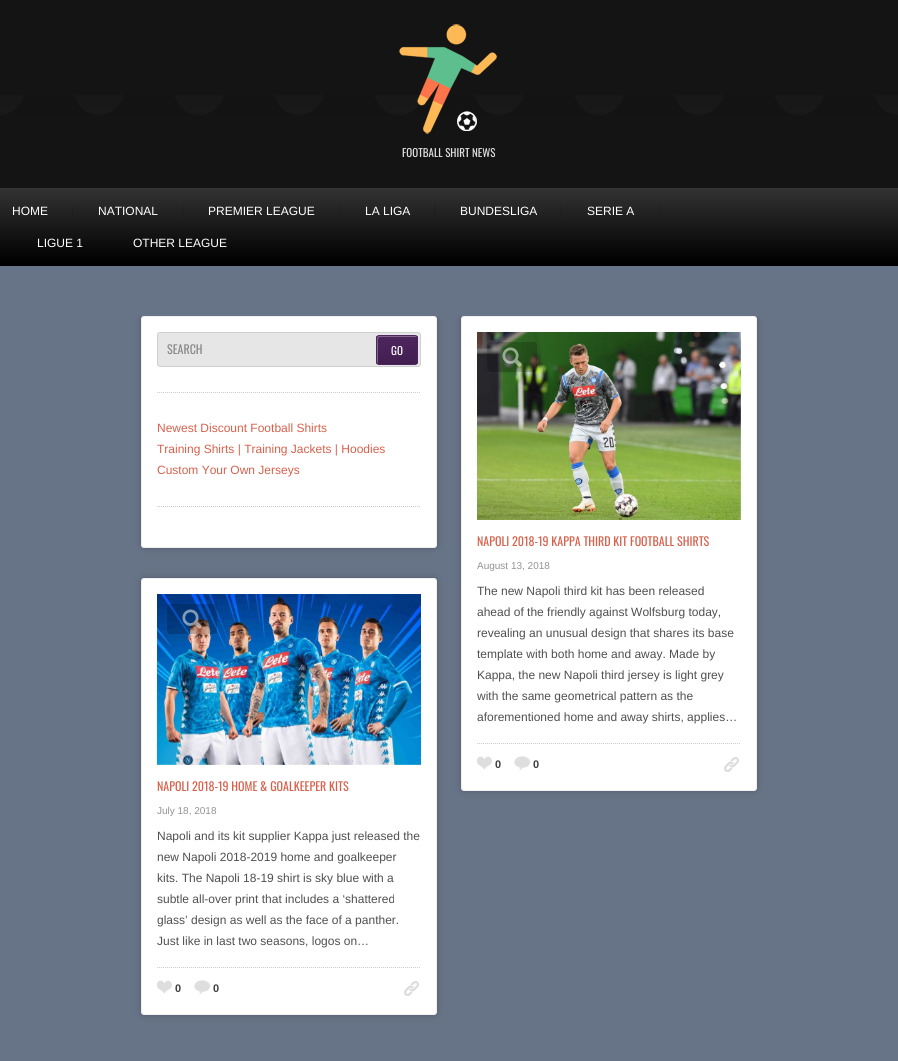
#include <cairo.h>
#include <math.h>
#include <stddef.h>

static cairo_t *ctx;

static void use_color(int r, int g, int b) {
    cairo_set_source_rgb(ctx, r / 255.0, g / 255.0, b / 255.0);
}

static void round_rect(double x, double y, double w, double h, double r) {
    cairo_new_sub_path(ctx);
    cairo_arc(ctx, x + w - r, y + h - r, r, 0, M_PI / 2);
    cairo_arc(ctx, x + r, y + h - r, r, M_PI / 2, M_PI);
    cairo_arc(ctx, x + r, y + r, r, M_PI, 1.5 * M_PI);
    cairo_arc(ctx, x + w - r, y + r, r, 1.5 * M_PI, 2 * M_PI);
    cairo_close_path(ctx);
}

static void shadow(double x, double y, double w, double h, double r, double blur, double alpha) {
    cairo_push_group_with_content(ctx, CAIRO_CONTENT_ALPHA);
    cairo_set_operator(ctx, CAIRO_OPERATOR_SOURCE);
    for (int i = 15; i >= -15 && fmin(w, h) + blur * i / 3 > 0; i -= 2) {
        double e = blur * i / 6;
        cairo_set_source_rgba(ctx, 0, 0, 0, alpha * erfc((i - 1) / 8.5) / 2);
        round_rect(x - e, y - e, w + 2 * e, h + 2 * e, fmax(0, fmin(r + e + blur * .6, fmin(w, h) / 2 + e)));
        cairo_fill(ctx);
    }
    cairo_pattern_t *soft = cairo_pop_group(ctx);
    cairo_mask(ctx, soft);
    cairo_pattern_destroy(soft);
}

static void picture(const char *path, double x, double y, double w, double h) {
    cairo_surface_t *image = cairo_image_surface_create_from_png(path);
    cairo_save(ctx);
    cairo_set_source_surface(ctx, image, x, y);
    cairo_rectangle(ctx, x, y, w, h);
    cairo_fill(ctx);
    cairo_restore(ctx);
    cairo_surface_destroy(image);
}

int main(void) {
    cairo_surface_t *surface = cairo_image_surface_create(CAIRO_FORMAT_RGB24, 898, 1061);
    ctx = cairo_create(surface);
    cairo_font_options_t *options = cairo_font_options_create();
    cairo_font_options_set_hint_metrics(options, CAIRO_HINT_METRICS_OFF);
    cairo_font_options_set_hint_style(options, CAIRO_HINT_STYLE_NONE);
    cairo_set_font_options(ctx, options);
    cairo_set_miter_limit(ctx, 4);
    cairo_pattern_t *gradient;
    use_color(103, 116, 135);
    cairo_paint(ctx);
    use_color(20, 20, 20);
    cairo_rectangle(ctx, 0, 0, 898, 188);
    cairo_fill(ctx);
    picture("img1.png", 0, 95, 898, 20);
    picture("img2.png", 399, 24, 98, 110);
    cairo_select_font_face(ctx, "Oswald", CAIRO_FONT_SLANT_NORMAL, CAIRO_FONT_WEIGHT_NORMAL);
    cairo_set_font_size(ctx, 11);
    use_color(225, 225, 225);
    cairo_move_to(ctx, 402, 157);
    cairo_show_text(ctx, "FOOTBALL SHIRT NEWS");
    gradient = cairo_pattern_create_linear(0, 263, 0, 188);
    cairo_pattern_add_color_stop_rgba(gradient, 0, 0, 0, 0, 1);
    cairo_pattern_add_color_stop_rgba(gradient, 1, 0.2, 0.2, 0.2, 1);
    cairo_set_source(ctx, gradient);
    cairo_pattern_destroy(gradient);
    cairo_rectangle(ctx, 0, 188, 898, 75);
    cairo_fill(ctx);
    gradient = cairo_pattern_create_linear(0, 263, 0, 188);
    cairo_pattern_add_color_stop_rgba(gradient, 0, 0, 0, 0, 1);
    cairo_pattern_add_color_stop_rgba(gradient, 1, 0.173, 0.173, 0.173, 1);
    cairo_set_source(ctx, gradient);
    cairo_pattern_destroy(gradient);
    cairo_rectangle(ctx, 659, 205, 1, 12);
    cairo_fill(ctx);
    cairo_rectangle(ctx, 561, 205, 1, 12);
    cairo_fill(ctx);
    cairo_rectangle(ctx, 434, 205, 1, 12);
    cairo_fill(ctx);
    cairo_rectangle(ctx, 339, 205, 1, 12);
    cairo_fill(ctx);
    cairo_rectangle(ctx, 182, 205, 1, 12);
    cairo_fill(ctx);
    cairo_rectangle(ctx, 72, 205, 1, 12);
    cairo_fill(ctx);
    use_color(0, 0, 0);
    cairo_rectangle(ctx, 0, 263, 898, 3);
    cairo_fill(ctx);
    cairo_select_font_face(ctx, "Liberation Sans", CAIRO_FONT_SLANT_NORMAL, CAIRO_FONT_WEIGHT_NORMAL);
    cairo_set_font_size(ctx, 12);
    use_color(255, 255, 255);
    cairo_move_to(ctx, 12, 215);
    cairo_show_text(ctx, "HOME");
    cairo_move_to(ctx, 98, 215);
    cairo_show_text(ctx, "NATIONAL");
    cairo_move_to(ctx, 208, 215);
    cairo_show_text(ctx, "PREMIER LEAGUE");
    cairo_move_to(ctx, 365, 215);
    cairo_show_text(ctx, "LA LIGA");
    cairo_move_to(ctx, 460, 215);
    cairo_show_text(ctx, "BUNDESLIGA");
    cairo_move_to(ctx, 587, 215);
    cairo_show_text(ctx, "SERIE A");
    cairo_move_to(ctx, 37, 247);
    cairo_show_text(ctx, "LIGUE 1");
    cairo_move_to(ctx, 133, 247);
    cairo_show_text(ctx, "OTHER LEAGUE");
    cairo_save(ctx);
    cairo_rectangle(ctx, 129, 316, 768, 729);
    cairo_clip(ctx);
    use_color(0, 0, 0);
    shadow(141, 316, 296, 232, 3, 3.5, 0.2);
    cairo_restore(ctx);
    round_rect(141.5, 316.5, 295, 231, 2.5);
    cairo_fill_preserve(ctx);
    use_color(239, 239, 239);
    cairo_set_line_width(ctx, 1);
    cairo_stroke(ctx);
    cairo_new_path(ctx);
    cairo_move_to(ctx, 157, 392.5);
    cairo_line_to(ctx, 421, 392.5);
    use_color(204, 204, 204);
    cairo_set_dash(ctx, (double[]){1, 1}, 2, 0);
    cairo_stroke(ctx);
    use_color(230, 230, 230);
    round_rect(157, 332, 264, 35, 3);
    cairo_fill(ctx);
    round_rect(157.5, 332.5, 263, 34, 2.5);
    cairo_set_source_rgba(ctx, 0, 0, 0, 0.1);
    cairo_set_dash(ctx, NULL, 0, 0);
    cairo_stroke(ctx);
    cairo_select_font_face(ctx, "Oswald", CAIRO_FONT_SLANT_NORMAL, CAIRO_FONT_WEIGHT_NORMAL);
    use_color(136, 136, 136);
    cairo_move_to(ctx, 167, 354);
    cairo_show_text(ctx, "SEARCH");
    cairo_save(ctx);
    round_rect(376, 335, 42, 30, 3);
    cairo_clip(ctx);
    gradient = cairo_pattern_create_linear(377, 364, 377, 336);
    cairo_pattern_add_color_stop_rgba(gradient, 0, 0.255, 0.118, 0.314, 1);
    cairo_pattern_add_color_stop_rgba(gradient, 1, 0.306, 0.149, 0.373, 1);
    cairo_set_source(ctx, gradient);
    cairo_pattern_destroy(gradient);
    cairo_rectangle(ctx, 376, 336, 42, 28);
    cairo_fill(ctx);
    cairo_restore(ctx);
    cairo_set_source_rgba(ctx, 1, 1, 1, 0.3);
    cairo_new_path(ctx);
    cairo_move_to(ctx, 380, 337);
    cairo_line_to(ctx, 417, 337);
    cairo_curve_to(ctx, 416.5, 336.5, 416, 336, 415, 336);
    cairo_line_to(ctx, 379, 336);
    cairo_curve_to(ctx, 378, 336, 377, 337, 377, 338);
    cairo_line_to(ctx, 377, 362);
    cairo_curve_to(ctx, 377, 363, 377.5, 363.5, 378, 364);
    cairo_line_to(ctx, 378, 343);
    cairo_curve_to(ctx, 378, 342, 377, 337, 380, 337);
    cairo_close_path(ctx);
    cairo_fill(ctx);
    round_rect(376.5, 335.5, 41, 29, 2.5);
    use_color(78, 38, 95);
    cairo_stroke(ctx);
    cairo_set_font_size(ctx, 11);
    use_color(255, 255, 255);
    cairo_move_to(ctx, 391, 355);
    cairo_show_text(ctx, "GO");
    cairo_new_path(ctx);
    cairo_move_to(ctx, 157, 506.5);
    cairo_line_to(ctx, 421, 506.5);
    use_color(204, 204, 204);
    cairo_set_dash(ctx, (double[]){1, 1}, 2, 0);
    cairo_stroke(ctx);
    cairo_select_font_face(ctx, "Liberation Sans", CAIRO_FONT_SLANT_NORMAL, CAIRO_FONT_WEIGHT_NORMAL);
    cairo_set_font_size(ctx, 12);
    use_color(215, 96, 75);
    cairo_move_to(ctx, 157, 432);
    cairo_show_text(ctx, "Newest Discount Football Shirts");
    cairo_move_to(ctx, 157, 453);
    cairo_show_text(ctx, "Training Shirts | Training Jackets | Hoodies");
    cairo_move_to(ctx, 157, 474);
    cairo_show_text(ctx, "Custom Your Own Jerseys");
    cairo_save(ctx);
    cairo_rectangle(ctx, 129, 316, 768, 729);
    cairo_clip(ctx);
    use_color(0, 0, 0);
    shadow(461, 316, 296, 475, 3, 3.5, 0.2);
    cairo_restore(ctx);
    use_color(255, 255, 255);
    round_rect(461.5, 316.5, 295, 474, 2.5);
    cairo_fill_preserve(ctx);
    use_color(239, 239, 239);
    cairo_set_dash(ctx, NULL, 0, 0);
    cairo_stroke(ctx);
    picture("img3.png", 477, 332, 264, 188);
    cairo_set_source_rgba(ctx, 0, 0, 0, 0.2);
    round_rect(487, 342, 50, 30, 3);
    cairo_fill(ctx);
    picture("img4.png", 502, 347, 20, 20);
    cairo_select_font_face(ctx, "Oswald", CAIRO_FONT_SLANT_NORMAL, CAIRO_FONT_WEIGHT_NORMAL);
    use_color(215, 96, 75);
    cairo_move_to(ctx, 477, 546);
    cairo_show_text(ctx, "NAPOLI 2018-19 KAPPA THIRD KIT FOOTBALL SHIRTS");
    cairo_select_font_face(ctx, "Liberation Sans", CAIRO_FONT_SLANT_NORMAL, CAIRO_FONT_WEIGHT_NORMAL);
    cairo_set_font_size(ctx, 10);
    use_color(147, 147, 147);
    cairo_move_to(ctx, 477, 569);
    cairo_show_text(ctx, "August 13, 2018");
    cairo_set_font_size(ctx, 12);
    use_color(79, 79, 78);
    cairo_move_to(ctx, 477, 595);
    cairo_show_text(ctx, "The new Napoli third kit has been released");
    cairo_move_to(ctx, 477, 616);
    cairo_show_text(ctx, "ahead of the friendly against Wolfsburg today,");
    cairo_move_to(ctx, 477, 637);
    cairo_show_text(ctx, "revealing an unusual design that shares its base");
    cairo_move_to(ctx, 477, 658);
    cairo_show_text(ctx, "template with both home and away. Made by");
    cairo_move_to(ctx, 477, 679);
    cairo_show_text(ctx, "Kappa, the new Napoli third jersey is light grey");
    cairo_move_to(ctx, 477, 700);
    cairo_show_text(ctx, "with the same geometrical pattern as the");
    cairo_move_to(ctx, 477, 721);
    cairo_show_text(ctx, "aforementioned home and away shirts, applies…");
    cairo_new_path(ctx);
    cairo_move_to(ctx, 477, 743.5);
    cairo_line_to(ctx, 741, 743.5);
    use_color(204, 204, 204);
    cairo_set_dash(ctx, (double[]){1, 1}, 2, 0);
    cairo_stroke(ctx);
    picture("img5.png", 477, 756, 15, 14);
    cairo_select_font_face(ctx, "Liberation Sans", CAIRO_FONT_SLANT_NORMAL, CAIRO_FONT_WEIGHT_BOLD);
    cairo_set_font_size(ctx, 11);
    use_color(63, 63, 63);
    cairo_move_to(ctx, 495, 768);
    cairo_show_text(ctx, "0");
    picture("img6.png", 514, 756, 17, 15);
    cairo_move_to(ctx, 533, 768);
    cairo_show_text(ctx, "0");
    picture("img7.png", 724, 757, 15, 15);
    use_color(0, 0, 0);
    shadow(141, 578, 296, 437, 3, 3.5, 0.2);
    use_color(255, 255, 255);
    round_rect(141.5, 578.5, 295, 436, 2.5);
    cairo_fill_preserve(ctx);
    use_color(239, 239, 239);
    cairo_set_dash(ctx, NULL, 0, 0);
    cairo_stroke(ctx);
    picture("img8.png", 157, 594, 264, 171);
    cairo_set_source_rgba(ctx, 0, 0, 0, 0.2);
    round_rect(167, 604, 50, 30, 3);
    cairo_fill(ctx);
    picture("img9.png", 182, 609, 20, 20);
    cairo_select_font_face(ctx, "Oswald", CAIRO_FONT_SLANT_NORMAL, CAIRO_FONT_WEIGHT_NORMAL);
    cairo_set_font_size(ctx, 12);
    use_color(215, 96, 75);
    cairo_move_to(ctx, 157, 791);
    cairo_show_text(ctx, "NAPOLI 2018-19 HOME & GOALKEEPER KITS");
    cairo_select_font_face(ctx, "Liberation Sans", CAIRO_FONT_SLANT_NORMAL, CAIRO_FONT_WEIGHT_NORMAL);
    cairo_set_font_size(ctx, 10);
    use_color(147, 147, 147);
    cairo_move_to(ctx, 157, 814);
    cairo_show_text(ctx, "July 18, 2018");
    cairo_set_font_size(ctx, 12);
    use_color(79, 79, 78);
    cairo_move_to(ctx, 157, 840);
    cairo_show_text(ctx, "Napoli and its kit supplier Kappa just released the");
    cairo_move_to(ctx, 157, 861);
    cairo_show_text(ctx, "new Napoli 2018-2019 home and goalkeeper");
    cairo_move_to(ctx, 157, 882);
    cairo_show_text(ctx, "kits. The Napoli 18-19 shirt is sky blue with a");
    cairo_move_to(ctx, 157, 903);
    cairo_show_text(ctx, "subtle all-over print that includes a ‘shattered");
    cairo_move_to(ctx, 157, 924);
    cairo_show_text(ctx, "glass’ design as well as the face of a panther.");
    cairo_move_to(ctx, 157, 945);
    cairo_show_text(ctx, "Just like in last two seasons, logos on…");
    cairo_new_path(ctx);
    cairo_move_to(ctx, 157, 967.5);
    cairo_line_to(ctx, 421, 967.5);
    use_color(204, 204, 204);
    cairo_set_dash(ctx, (double[]){1, 1}, 2, 0);
    cairo_stroke(ctx);
    picture("img5.png", 157, 980, 15, 14);
    cairo_select_font_face(ctx, "Liberation Sans", CAIRO_FONT_SLANT_NORMAL, CAIRO_FONT_WEIGHT_BOLD);
    cairo_set_font_size(ctx, 11);
    use_color(63, 63, 63);
    cairo_move_to(ctx, 175, 992);
    cairo_show_text(ctx, "0");
    picture("img6.png", 194, 980, 17, 15);
    cairo_move_to(ctx, 213, 992);
    cairo_show_text(ctx, "0");
    picture("img7.png", 404, 981, 15, 15);
    cairo_surface_write_to_png(surface, "result.png");
    cairo_font_options_destroy(options);
    cairo_destroy(ctx);
    cairo_surface_destroy(surface);
    return 0;
}
